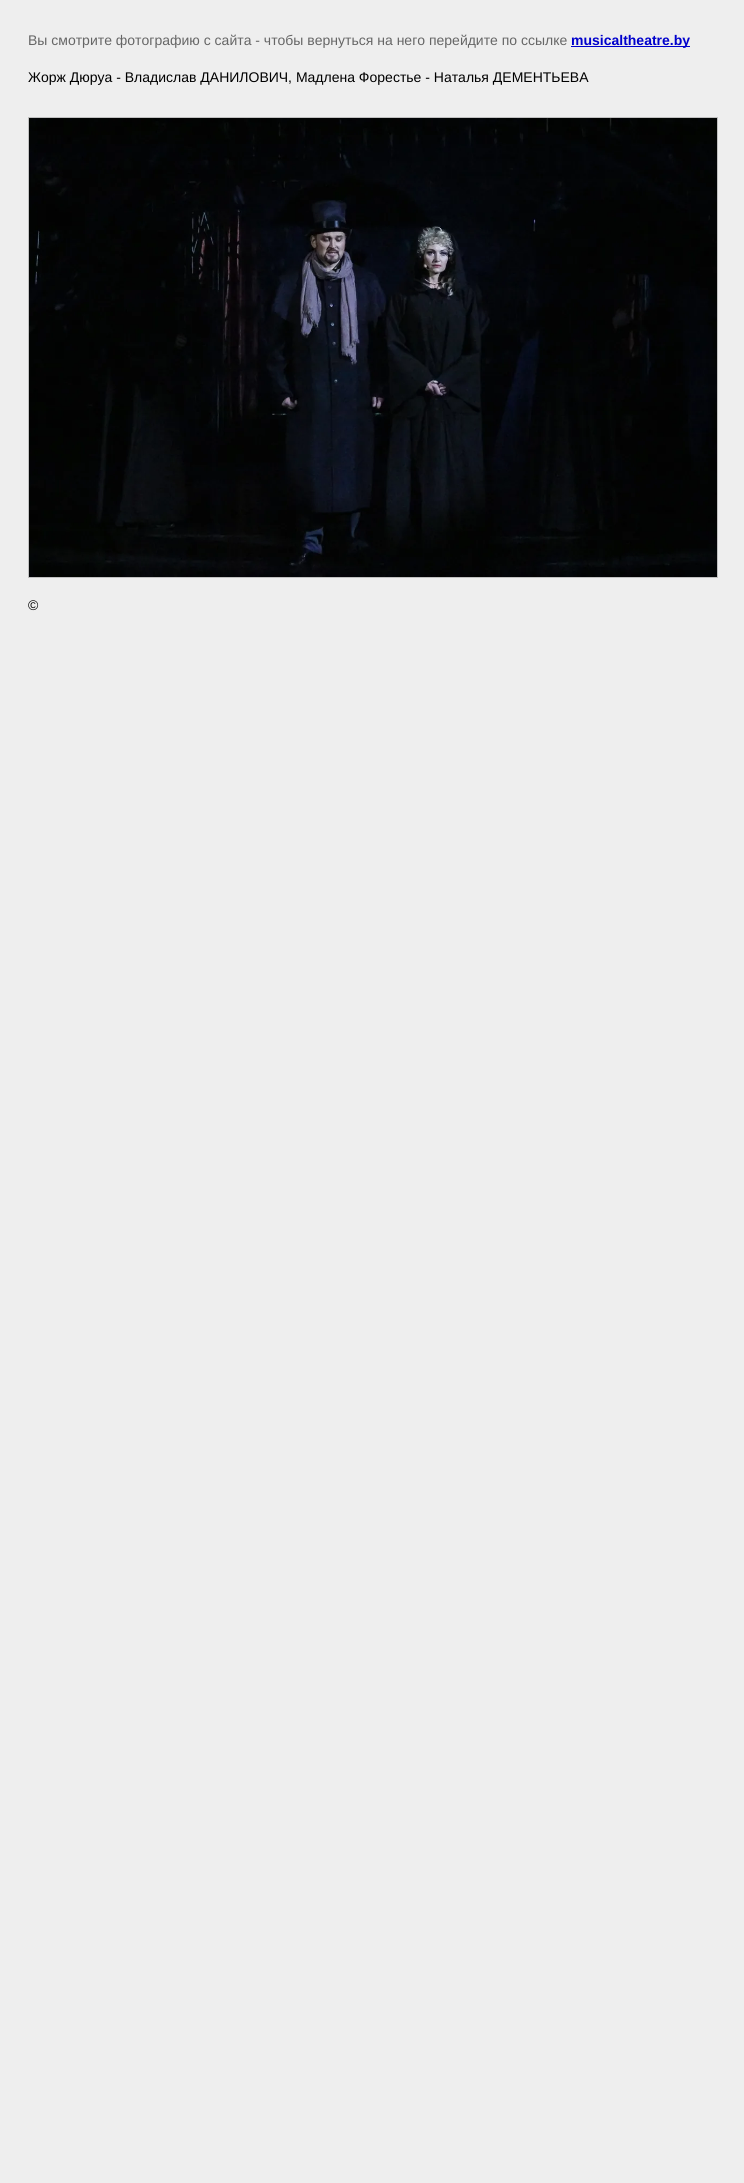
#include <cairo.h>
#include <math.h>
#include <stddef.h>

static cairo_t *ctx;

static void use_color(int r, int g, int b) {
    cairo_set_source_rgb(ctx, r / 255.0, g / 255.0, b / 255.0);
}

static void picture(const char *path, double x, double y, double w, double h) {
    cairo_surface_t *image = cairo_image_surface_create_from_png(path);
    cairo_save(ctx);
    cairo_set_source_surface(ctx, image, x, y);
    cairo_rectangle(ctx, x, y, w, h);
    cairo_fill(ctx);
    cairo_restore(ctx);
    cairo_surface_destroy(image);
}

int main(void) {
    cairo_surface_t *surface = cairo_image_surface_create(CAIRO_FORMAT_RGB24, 744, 2183);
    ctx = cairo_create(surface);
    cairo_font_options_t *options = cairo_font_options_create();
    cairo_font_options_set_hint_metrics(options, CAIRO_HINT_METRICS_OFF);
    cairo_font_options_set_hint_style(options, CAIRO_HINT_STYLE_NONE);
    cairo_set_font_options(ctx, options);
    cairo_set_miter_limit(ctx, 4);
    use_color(238, 238, 238);
    cairo_paint(ctx);
    cairo_select_font_face(ctx, "Liberation Sans", CAIRO_FONT_SLANT_NORMAL, CAIRO_FONT_WEIGHT_NORMAL);
    cairo_set_font_size(ctx, 14);
    use_color(102, 102, 102);
    cairo_move_to(ctx, 28, 45);
    cairo_show_text(ctx, "Вы смотрите фотографию с сайта - чтобы вернуться на него перейдите по ссылке");
    use_color(0, 0, 204);
    cairo_rectangle(ctx, 571, 46, 119, 1);
    cairo_fill(ctx);
    cairo_select_font_face(ctx, "Liberation Sans", CAIRO_FONT_SLANT_NORMAL, CAIRO_FONT_WEIGHT_BOLD);
    cairo_move_to(ctx, 571, 45);
    cairo_show_text(ctx, "musicaltheatre.by");
    cairo_select_font_face(ctx, "Liberation Sans", CAIRO_FONT_SLANT_NORMAL, CAIRO_FONT_WEIGHT_NORMAL);
    use_color(0, 0, 0);
    cairo_move_to(ctx, 28, 82);
    cairo_show_text(ctx, "Жорж Дюруа - Владислав ДАНИЛОВИЧ, Мадлена Форестье - Наталья ДЕМЕНТЬЕВА");
    cairo_rectangle(ctx, 28.5, 117.5, 689, 460);
    use_color(192, 192, 192);
    cairo_set_line_width(ctx, 1);
    cairo_stroke(ctx);
    picture("img1.png", 29, 118, 688, 459);
    use_color(0, 0, 0);
    cairo_move_to(ctx, 28, 610);
    cairo_show_text(ctx, "©");
    cairo_surface_write_to_png(surface, "result.png");
    cairo_font_options_destroy(options);
    cairo_destroy(ctx);
    cairo_surface_destroy(surface);
    return 0;
}
